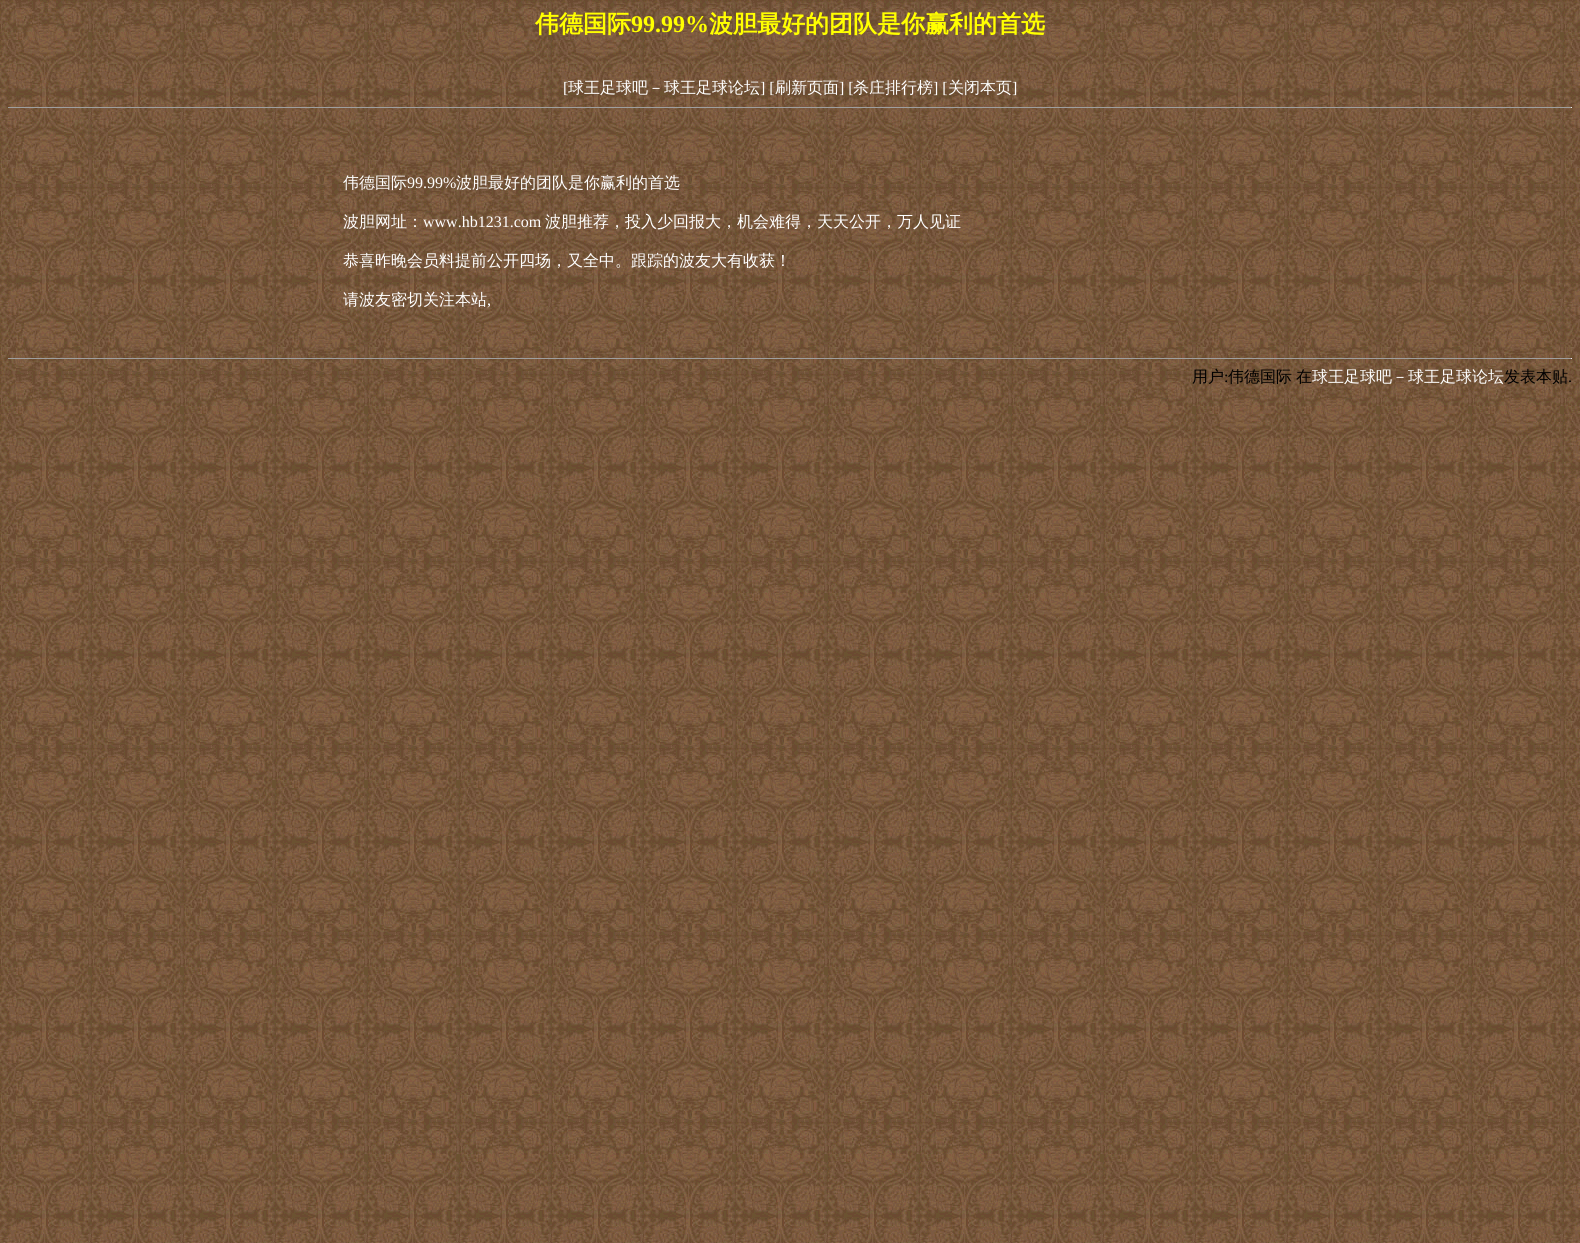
#include <cairo.h>
#include <math.h>
#include <stddef.h>

static cairo_t *ctx;

static void use_color(int r, int g, int b) {
    cairo_set_source_rgb(ctx, r / 255.0, g / 255.0, b / 255.0);
}

static void picture(const char *path, double x, double y, double w, double h) {
    cairo_surface_t *image = cairo_image_surface_create_from_png(path);
    cairo_save(ctx);
    cairo_set_source_surface(ctx, image, x, y);
    cairo_rectangle(ctx, x, y, w, h);
    cairo_fill(ctx);
    cairo_restore(ctx);
    cairo_surface_destroy(image);
}

int main(void) {
    cairo_surface_t *surface = cairo_image_surface_create(CAIRO_FORMAT_RGB24, 1580, 1243);
    ctx = cairo_create(surface);
    cairo_font_options_t *options = cairo_font_options_create();
    cairo_font_options_set_hint_metrics(options, CAIRO_HINT_METRICS_OFF);
    cairo_font_options_set_hint_style(options, CAIRO_HINT_STYLE_NONE);
    cairo_set_font_options(ctx, options);
    cairo_set_miter_limit(ctx, 4);
    use_color(255, 255, 255);
    cairo_paint(ctx);
    picture("img1.png", 0, 0, 1580, 1243);
    cairo_select_font_face(ctx, "WenQuanYi Zen Hei", CAIRO_FONT_SLANT_NORMAL, CAIRO_FONT_WEIGHT_BOLD);
    cairo_set_font_size(ctx, 24);
    use_color(255, 255, 0);
    cairo_move_to(ctx, 535, 32);
    cairo_show_text(ctx, "伟德国际");
    cairo_select_font_face(ctx, "Liberation Serif", CAIRO_FONT_SLANT_NORMAL, CAIRO_FONT_WEIGHT_BOLD);
    cairo_move_to(ctx, 631, 32);
    cairo_show_text(ctx, "99.99%");
    cairo_select_font_face(ctx, "WenQuanYi Zen Hei", CAIRO_FONT_SLANT_NORMAL, CAIRO_FONT_WEIGHT_BOLD);
    cairo_move_to(ctx, 709, 32);
    cairo_show_text(ctx, "波胆最好的团队是你赢利的首选");
    cairo_select_font_face(ctx, "Liberation Serif", CAIRO_FONT_SLANT_NORMAL, CAIRO_FONT_WEIGHT_NORMAL);
    cairo_set_font_size(ctx, 16);
    use_color(255, 255, 255);
    cairo_move_to(ctx, 563, 93);
    cairo_show_text(ctx, "[");
    cairo_select_font_face(ctx, "WenQuanYi Zen Hei Medium", CAIRO_FONT_SLANT_NORMAL, CAIRO_FONT_WEIGHT_NORMAL);
    cairo_move_to(ctx, 568, 93);
    cairo_show_text(ctx, "球王足球吧－球王足球论坛");
    cairo_select_font_face(ctx, "Liberation Serif", CAIRO_FONT_SLANT_NORMAL, CAIRO_FONT_WEIGHT_NORMAL);
    cairo_move_to(ctx, 760, 93);
    cairo_show_text(ctx, "] [");
    cairo_select_font_face(ctx, "WenQuanYi Zen Hei Medium", CAIRO_FONT_SLANT_NORMAL, CAIRO_FONT_WEIGHT_NORMAL);
    cairo_move_to(ctx, 775, 93);
    cairo_show_text(ctx, "刷新页面");
    cairo_select_font_face(ctx, "Liberation Serif", CAIRO_FONT_SLANT_NORMAL, CAIRO_FONT_WEIGHT_NORMAL);
    cairo_move_to(ctx, 839, 93);
    cairo_show_text(ctx, "] [");
    cairo_select_font_face(ctx, "WenQuanYi Zen Hei Medium", CAIRO_FONT_SLANT_NORMAL, CAIRO_FONT_WEIGHT_NORMAL);
    cairo_move_to(ctx, 853, 93);
    cairo_show_text(ctx, "杀庄排行榜");
    cairo_select_font_face(ctx, "Liberation Serif", CAIRO_FONT_SLANT_NORMAL, CAIRO_FONT_WEIGHT_NORMAL);
    cairo_move_to(ctx, 933, 93);
    cairo_show_text(ctx, "] [");
    cairo_select_font_face(ctx, "WenQuanYi Zen Hei Medium", CAIRO_FONT_SLANT_NORMAL, CAIRO_FONT_WEIGHT_NORMAL);
    cairo_move_to(ctx, 948, 93);
    cairo_show_text(ctx, "关闭本页");
    cairo_select_font_face(ctx, "Liberation Serif", CAIRO_FONT_SLANT_NORMAL, CAIRO_FONT_WEIGHT_NORMAL);
    cairo_move_to(ctx, 1012, 93);
    cairo_show_text(ctx, "]");
    use_color(159, 159, 159);
    cairo_rectangle(ctx, 8, 107, 1564, 1);
    cairo_fill(ctx);
    use_color(238, 238, 238);
    cairo_rectangle(ctx, 1571, 107, 1, 1);
    cairo_fill(ctx);
    cairo_select_font_face(ctx, "WenQuanYi Zen Hei Medium", CAIRO_FONT_SLANT_NORMAL, CAIRO_FONT_WEIGHT_NORMAL);
    use_color(255, 255, 255);
    cairo_move_to(ctx, 343, 188);
    cairo_show_text(ctx, "伟德国际");
    cairo_select_font_face(ctx, "Liberation Serif", CAIRO_FONT_SLANT_NORMAL, CAIRO_FONT_WEIGHT_NORMAL);
    cairo_move_to(ctx, 407, 188);
    cairo_show_text(ctx, "99.99%");
    cairo_select_font_face(ctx, "WenQuanYi Zen Hei Medium", CAIRO_FONT_SLANT_NORMAL, CAIRO_FONT_WEIGHT_NORMAL);
    cairo_move_to(ctx, 456, 188);
    cairo_show_text(ctx, "波胆最好的团队是你赢利的首选");
    cairo_move_to(ctx, 343, 227);
    cairo_show_text(ctx, "波胆网址：");
    cairo_select_font_face(ctx, "Liberation Serif", CAIRO_FONT_SLANT_NORMAL, CAIRO_FONT_WEIGHT_NORMAL);
    cairo_move_to(ctx, 423, 227);
    cairo_show_text(ctx, "www.hb1231.com");
    cairo_select_font_face(ctx, "WenQuanYi Zen Hei Medium", CAIRO_FONT_SLANT_NORMAL, CAIRO_FONT_WEIGHT_NORMAL);
    cairo_move_to(ctx, 545, 227);
    cairo_show_text(ctx, "波胆推荐，投入少回报大，机会难得，天天公开，万人见证");
    cairo_move_to(ctx, 343, 266);
    cairo_show_text(ctx, "恭喜昨晚会员料提前公开四场，又全中。跟踪的波友大有收获！");
    cairo_move_to(ctx, 343, 305);
    cairo_show_text(ctx, "请波友密切关注本站");
    cairo_select_font_face(ctx, "Liberation Serif", CAIRO_FONT_SLANT_NORMAL, CAIRO_FONT_WEIGHT_NORMAL);
    cairo_move_to(ctx, 487, 305);
    cairo_show_text(ctx, ",");
    use_color(159, 159, 159);
    cairo_rectangle(ctx, 8, 358, 1564, 1);
    cairo_fill(ctx);
    use_color(238, 238, 238);
    cairo_rectangle(ctx, 1571, 358, 1, 1);
    cairo_fill(ctx);
    cairo_select_font_face(ctx, "WenQuanYi Zen Hei Medium", CAIRO_FONT_SLANT_NORMAL, CAIRO_FONT_WEIGHT_NORMAL);
    use_color(0, 0, 0);
    cairo_move_to(ctx, 1192, 382);
    cairo_show_text(ctx, "用户");
    cairo_select_font_face(ctx, "Liberation Serif", CAIRO_FONT_SLANT_NORMAL, CAIRO_FONT_WEIGHT_NORMAL);
    cairo_move_to(ctx, 1224, 382);
    cairo_show_text(ctx, ":");
    cairo_select_font_face(ctx, "WenQuanYi Zen Hei Medium", CAIRO_FONT_SLANT_NORMAL, CAIRO_FONT_WEIGHT_NORMAL);
    cairo_move_to(ctx, 1228, 382);
    cairo_show_text(ctx, "伟德国际");
    cairo_move_to(ctx, 1296, 382);
    cairo_show_text(ctx, "在");
    use_color(255, 255, 255);
    cairo_move_to(ctx, 1312, 382);
    cairo_show_text(ctx, "球王足球吧－球王足球论坛");
    use_color(0, 0, 0);
    cairo_move_to(ctx, 1504, 382);
    cairo_show_text(ctx, "发表本贴");
    cairo_select_font_face(ctx, "Liberation Serif", CAIRO_FONT_SLANT_NORMAL, CAIRO_FONT_WEIGHT_NORMAL);
    cairo_move_to(ctx, 1568, 382);
    cairo_show_text(ctx, ".");
    cairo_surface_write_to_png(surface, "result.png");
    cairo_font_options_destroy(options);
    cairo_destroy(ctx);
    cairo_surface_destroy(surface);
    return 0;
}
